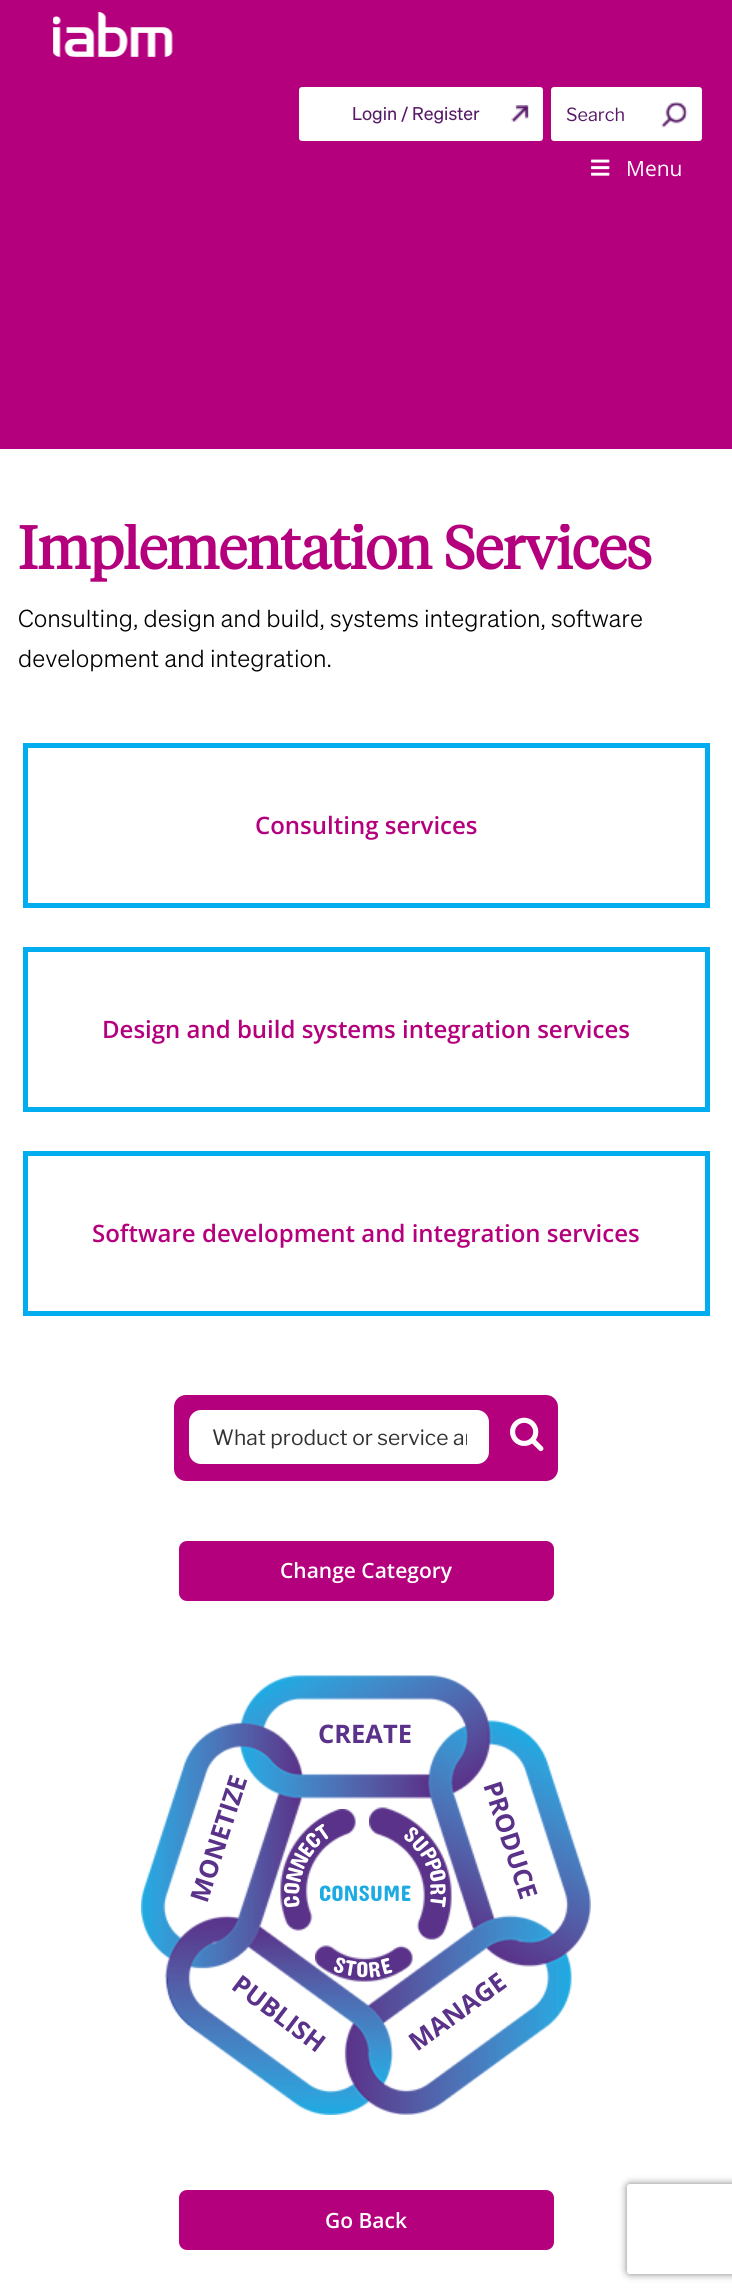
#include <cairo.h>
#include <math.h>
#include <stddef.h>

static cairo_t *ctx;

static void use_color(int r, int g, int b) {
    cairo_set_source_rgb(ctx, r / 255.0, g / 255.0, b / 255.0);
}

static void round_rect(double x, double y, double w, double h, double r) {
    cairo_new_sub_path(ctx);
    cairo_arc(ctx, x + w - r, y + h - r, r, 0, M_PI / 2);
    cairo_arc(ctx, x + r, y + h - r, r, M_PI / 2, M_PI);
    cairo_arc(ctx, x + r, y + r, r, M_PI, 1.5 * M_PI);
    cairo_arc(ctx, x + w - r, y + r, r, 1.5 * M_PI, 2 * M_PI);
    cairo_close_path(ctx);
}

static void shadow(double x, double y, double w, double h, double r, double blur, double alpha) {
    cairo_push_group_with_content(ctx, CAIRO_CONTENT_ALPHA);
    cairo_set_operator(ctx, CAIRO_OPERATOR_SOURCE);
    for (int i = 15; i >= -15 && fmin(w, h) + blur * i / 3 > 0; i -= 2) {
        double e = blur * i / 6;
        cairo_set_source_rgba(ctx, 0, 0, 0, alpha * erfc((i - 1) / 8.5) / 2);
        round_rect(x - e, y - e, w + 2 * e, h + 2 * e, fmax(0, fmin(r + e + blur * .6, fmin(w, h) / 2 + e)));
        cairo_fill(ctx);
    }
    cairo_pattern_t *soft = cairo_pop_group(ctx);
    cairo_mask(ctx, soft);
    cairo_pattern_destroy(soft);
}

static void picture(const char *path, double x, double y, double w, double h) {
    cairo_surface_t *image = cairo_image_surface_create_from_png(path);
    cairo_save(ctx);
    cairo_set_source_surface(ctx, image, x, y);
    cairo_rectangle(ctx, x, y, w, h);
    cairo_fill(ctx);
    cairo_restore(ctx);
    cairo_surface_destroy(image);
}

int main(void) {
    cairo_surface_t *surface = cairo_image_surface_create(CAIRO_FORMAT_RGB24, 732, 2295);
    ctx = cairo_create(surface);
    cairo_font_options_t *options = cairo_font_options_create();
    cairo_font_options_set_hint_metrics(options, CAIRO_HINT_METRICS_OFF);
    cairo_font_options_set_hint_style(options, CAIRO_HINT_STYLE_NONE);
    cairo_set_font_options(ctx, options);
    cairo_set_miter_limit(ctx, 4);
    use_color(255, 255, 255);
    cairo_paint(ctx);
    use_color(181, 0, 126);
    cairo_rectangle(ctx, 0, 0, 732, 449);
    cairo_fill(ctx);
    picture("img1.png", 53, 12, 120, 45);
    use_color(255, 255, 255);
    round_rect(299, 87, 244, 54, 3);
    cairo_fill(ctx);
    picture("img2.png", 511, 105, 18, 17);
    cairo_select_font_face(ctx, "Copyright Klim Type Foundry", CAIRO_FONT_SLANT_NORMAL, CAIRO_FONT_WEIGHT_NORMAL);
    cairo_set_font_size(ctx, 18);
    use_color(86, 24, 101);
    cairo_move_to(ctx, 352, 120);
    cairo_show_text(ctx, "Login / Register");
    use_color(255, 255, 255);
    round_rect(551, 87, 151, 54, 3);
    cairo_fill(ctx);
    picture("img3.png", 661, 102, 27, 26);
    cairo_select_font_face(ctx, "Libre Franklin", CAIRO_FONT_SLANT_NORMAL, CAIRO_FONT_WEIGHT_NORMAL);
    use_color(86, 24, 101);
    cairo_move_to(ctx, 566, 121);
    cairo_show_text(ctx, "Search");
    picture("img4.png", 591, 159, 19, 17);
    cairo_select_font_face(ctx, "Open Sans", CAIRO_FONT_SLANT_NORMAL, CAIRO_FONT_WEIGHT_NORMAL);
    cairo_set_font_size(ctx, 21);
    use_color(255, 255, 255);
    cairo_move_to(ctx, 626, 176);
    cairo_show_text(ctx, "Menu");
    cairo_save(ctx);
    cairo_rectangle(ctx, 18, 524, 696, 75);
    cairo_clip(ctx);
    cairo_select_font_face(ctx, "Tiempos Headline", CAIRO_FONT_SLANT_NORMAL, CAIRO_FONT_WEIGHT_BOLD);
    cairo_set_font_size(ctx, 60);
    use_color(181, 0, 126);
    cairo_move_to(ctx, 18, 569);
    cairo_show_text(ctx, "Implementation Services");
    cairo_restore(ctx);
    cairo_select_font_face(ctx, "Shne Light", CAIRO_FONT_SLANT_NORMAL, CAIRO_FONT_WEIGHT_NORMAL);
    cairo_set_font_size(ctx, 24);
    use_color(0, 0, 0);
    cairo_move_to(ctx, 18, 627);
    cairo_show_text(ctx, "Consulting, design and build, systems integration, software");
    cairo_move_to(ctx, 18, 667);
    cairo_show_text(ctx, "development and integration.");
    cairo_rectangle(ctx, 25.5, 745.5, 682, 160);
    use_color(1, 173, 239);
    cairo_set_line_width(ctx, 5);
    cairo_stroke(ctx);
    cairo_select_font_face(ctx, "Open Sans SemiBold", CAIRO_FONT_SLANT_NORMAL, CAIRO_FONT_WEIGHT_NORMAL);
    use_color(181, 0, 126);
    cairo_move_to(ctx, 255, 834);
    cairo_show_text(ctx, "Consulting services");
    cairo_rectangle(ctx, 25.5, 949.5, 682, 160);
    use_color(1, 173, 239);
    cairo_stroke(ctx);
    use_color(181, 0, 126);
    cairo_move_to(ctx, 102, 1038);
    cairo_show_text(ctx, "Design and build systems integration services");
    cairo_rectangle(ctx, 25.5, 1153.5, 682, 160);
    use_color(1, 173, 239);
    cairo_stroke(ctx);
    use_color(181, 0, 126);
    cairo_move_to(ctx, 92, 1242);
    cairo_show_text(ctx, "Software development and integration services");
    round_rect(174, 1395, 384, 86, 12);
    cairo_fill(ctx);
    use_color(255, 255, 255);
    round_rect(189, 1410, 300, 54, 12);
    cairo_fill(ctx);
    cairo_save(ctx);
    cairo_rectangle(ctx, 212, 1425, 255, 26);
    cairo_clip(ctx);
    cairo_select_font_face(ctx, "Libre Franklin", CAIRO_FONT_SLANT_NORMAL, CAIRO_FONT_WEIGHT_NORMAL);
    cairo_set_font_size(ctx, 21);
    use_color(51, 51, 51);
    cairo_move_to(ctx, 212, 1445);
    cairo_show_text(ctx, "What product or service ar");
    cairo_restore(ctx);
    picture("img5.png", 510, 1417, 34, 35);
    use_color(181, 0, 126);
    round_rect(179, 1541, 375, 60, 8);
    cairo_fill(ctx);
    cairo_set_font_size(ctx, 21);
    use_color(255, 255, 255);
    cairo_move_to(ctx, 280, 1578);
    cairo_show_text(ctx, "Change Category");
    picture("img6.png", 141, 1675, 450, 440);
    cairo_select_font_face(ctx, "Open Sans", CAIRO_FONT_SLANT_NORMAL, CAIRO_FONT_WEIGHT_BOLD);
    cairo_set_font_size(ctx, 25.5);
    use_color(90, 50, 138);
    cairo_move_to(ctx, 318, 1743);
    cairo_show_text(ctx, "CREATE");
    cairo_save(ctx);
    cairo_translate(ctx, 207, 1904);
    cairo_rotate(ctx, -72 * M_PI / 180);
    cairo_move_to(ctx, 0, 0);
    cairo_show_text(ctx, "MONETIZE");
    cairo_restore(ctx);
    cairo_save(ctx);
    cairo_translate(ctx, 483, 1785);
    cairo_rotate(ctx, 72 * M_PI / 180);
    cairo_move_to(ctx, 0, 0);
    cairo_show_text(ctx, "PRODUCE");
    cairo_restore(ctx);
    cairo_save(ctx);
    cairo_translate(ctx, 230, 1988);
    cairo_rotate(ctx, 37 * M_PI / 180);
    cairo_move_to(ctx, 0, 0);
    cairo_show_text(ctx, "PUBLISH");
    cairo_restore(ctx);
    cairo_save(ctx);
    cairo_translate(ctx, 417, 2052);
    cairo_rotate(ctx, -36 * M_PI / 180);
    cairo_move_to(ctx, 0, 0);
    cairo_show_text(ctx, "MANAGE");
    cairo_restore(ctx);
    picture("img7.png", 280, 1809, 76, 122);
    cairo_select_font_face(ctx, "Concert One", CAIRO_FONT_SLANT_NORMAL, CAIRO_FONT_WEIGHT_NORMAL);
    cairo_set_font_size(ctx, 22.5);
    use_color(255, 255, 255);
    cairo_save(ctx);
    cairo_translate(ctx, 314, 1850);
    cairo_rotate(ctx, -44 * M_PI / 180);
    cairo_move_to(ctx, 0, 0);
    cairo_show_text(ctx, "C");
    cairo_restore(ctx);
    cairo_save(ctx);
    cairo_translate(ctx, 323, 1842);
    cairo_rotate(ctx, -35 * M_PI / 180);
    cairo_move_to(ctx, 0, 0);
    cairo_show_text(ctx, "T");
    cairo_restore(ctx);
    cairo_save(ctx);
    cairo_translate(ctx, 309, 1859);
    cairo_rotate(ctx, -54 * M_PI / 180);
    cairo_move_to(ctx, 0, 0);
    cairo_show_text(ctx, "E");
    cairo_restore(ctx);
    cairo_save(ctx);
    cairo_translate(ctx, 303, 1871);
    cairo_rotate(ctx, -64 * M_PI / 180);
    cairo_move_to(ctx, 0, 0);
    cairo_show_text(ctx, "N");
    cairo_restore(ctx);
    cairo_save(ctx);
    cairo_translate(ctx, 300, 1884);
    cairo_rotate(ctx, -75 * M_PI / 180);
    cairo_move_to(ctx, 0, 0);
    cairo_show_text(ctx, "N");
    cairo_restore(ctx);
    cairo_save(ctx);
    cairo_translate(ctx, 299, 1895);
    cairo_rotate(ctx, -86 * M_PI / 180);
    cairo_move_to(ctx, 0, 0);
    cairo_show_text(ctx, "O");
    cairo_restore(ctx);
    cairo_save(ctx);
    cairo_translate(ctx, 300, 1907);
    cairo_rotate(ctx, -96 * M_PI / 180);
    cairo_move_to(ctx, 0, 0);
    cairo_show_text(ctx, "C");
    cairo_restore(ctx);
    picture("img8.png", 369, 1807, 83, 133);
    cairo_save(ctx);
    cairo_translate(ctx, 402, 1837);
    cairo_rotate(ctx, 39 * M_PI / 180);
    cairo_move_to(ctx, 0, 0);
    cairo_show_text(ctx, "S");
    cairo_restore(ctx);
    cairo_save(ctx);
    cairo_translate(ctx, 410, 1844);
    cairo_rotate(ctx, 49 * M_PI / 180);
    cairo_move_to(ctx, 0, 0);
    cairo_show_text(ctx, "U");
    cairo_restore(ctx);
    cairo_save(ctx);
    cairo_translate(ctx, 419, 1853);
    cairo_rotate(ctx, 59 * M_PI / 180);
    cairo_move_to(ctx, 0, 0);
    cairo_show_text(ctx, "P");
    cairo_restore(ctx);
    cairo_save(ctx);
    cairo_translate(ctx, 424, 1862);
    cairo_rotate(ctx, 68 * M_PI / 180);
    cairo_move_to(ctx, 0, 0);
    cairo_show_text(ctx, "P");
    cairo_restore(ctx);
    cairo_save(ctx);
    cairo_translate(ctx, 429, 1871);
    cairo_rotate(ctx, 78 * M_PI / 180);
    cairo_move_to(ctx, 0, 0);
    cairo_show_text(ctx, "O");
    cairo_restore(ctx);
    cairo_save(ctx);
    cairo_translate(ctx, 430, 1883);
    cairo_rotate(ctx, 88 * M_PI / 180);
    cairo_move_to(ctx, 0, 0);
    cairo_show_text(ctx, "R");
    cairo_restore(ctx);
    cairo_save(ctx);
    cairo_translate(ctx, 431, 1895);
    cairo_rotate(ctx, 97 * M_PI / 180);
    cairo_move_to(ctx, 0, 0);
    cairo_show_text(ctx, "T");
    cairo_restore(ctx);
    picture("img9.png", 315, 1945, 98, 37);
    cairo_save(ctx);
    cairo_translate(ctx, 332, 1971);
    cairo_rotate(ctx, 17 * M_PI / 180);
    cairo_move_to(ctx, 0, 0);
    cairo_show_text(ctx, "S");
    cairo_restore(ctx);
    cairo_save(ctx);
    cairo_translate(ctx, 344, 1975);
    cairo_rotate(ctx, 9 * M_PI / 180);
    cairo_move_to(ctx, 0, 0);
    cairo_show_text(ctx, "T");
    cairo_restore(ctx);
    cairo_save(ctx);
    cairo_translate(ctx, 356, 1977);
    cairo_rotate(ctx, 1 * M_PI / 180);
    cairo_move_to(ctx, 0, 0);
    cairo_show_text(ctx, "O");
    cairo_restore(ctx);
    cairo_save(ctx);
    cairo_translate(ctx, 369, 1978);
    cairo_rotate(ctx, -7 * M_PI / 180);
    cairo_move_to(ctx, 0, 0);
    cairo_show_text(ctx, "R");
    cairo_restore(ctx);
    cairo_save(ctx);
    cairo_translate(ctx, 383, 1975);
    cairo_rotate(ctx, -15 * M_PI / 180);
    cairo_move_to(ctx, 0, 0);
    cairo_show_text(ctx, "E");
    cairo_restore(ctx);
    use_color(30, 171, 227);
    cairo_move_to(ctx, 319, 1901);
    cairo_show_text(ctx, "CONSUME");
    use_color(181, 0, 126);
    round_rect(179, 2190, 375, 60, 8);
    cairo_fill(ctx);
    cairo_select_font_face(ctx, "Open Sans SemiBold", CAIRO_FONT_SLANT_NORMAL, CAIRO_FONT_WEIGHT_NORMAL);
    cairo_set_font_size(ctx, 21);
    use_color(255, 255, 255);
    cairo_move_to(ctx, 325, 2228);
    cairo_show_text(ctx, "Go Back");
    cairo_save(ctx);
    cairo_set_fill_rule(ctx, CAIRO_FILL_RULE_EVEN_ODD);
    cairo_new_path(ctx);
    cairo_move_to(ctx, 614, 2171);
    cairo_line_to(ctx, 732, 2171);
    cairo_line_to(ctx, 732, 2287);
    cairo_line_to(ctx, 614, 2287);
    cairo_close_path(ctx);
    cairo_move_to(ctx, 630, 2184);
    cairo_line_to(ctx, 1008, 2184);
    cairo_curve_to(ctx, 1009.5, 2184, 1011, 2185.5, 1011, 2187);
    cairo_line_to(ctx, 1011, 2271);
    cairo_curve_to(ctx, 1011, 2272.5, 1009.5, 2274, 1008, 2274);
    cairo_line_to(ctx, 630, 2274);
    cairo_curve_to(ctx, 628.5, 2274, 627, 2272.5, 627, 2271);
    cairo_line_to(ctx, 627, 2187);
    cairo_curve_to(ctx, 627, 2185.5, 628.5, 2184, 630, 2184);
    cairo_close_path(ctx);
    cairo_clip(ctx);
    use_color(128, 128, 128);
    shadow(627, 2184, 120, 90, 3, 4, 1);
    cairo_restore(ctx);
    cairo_surface_write_to_png(surface, "result.png");
    cairo_font_options_destroy(options);
    cairo_destroy(ctx);
    cairo_surface_destroy(surface);
    return 0;
}
